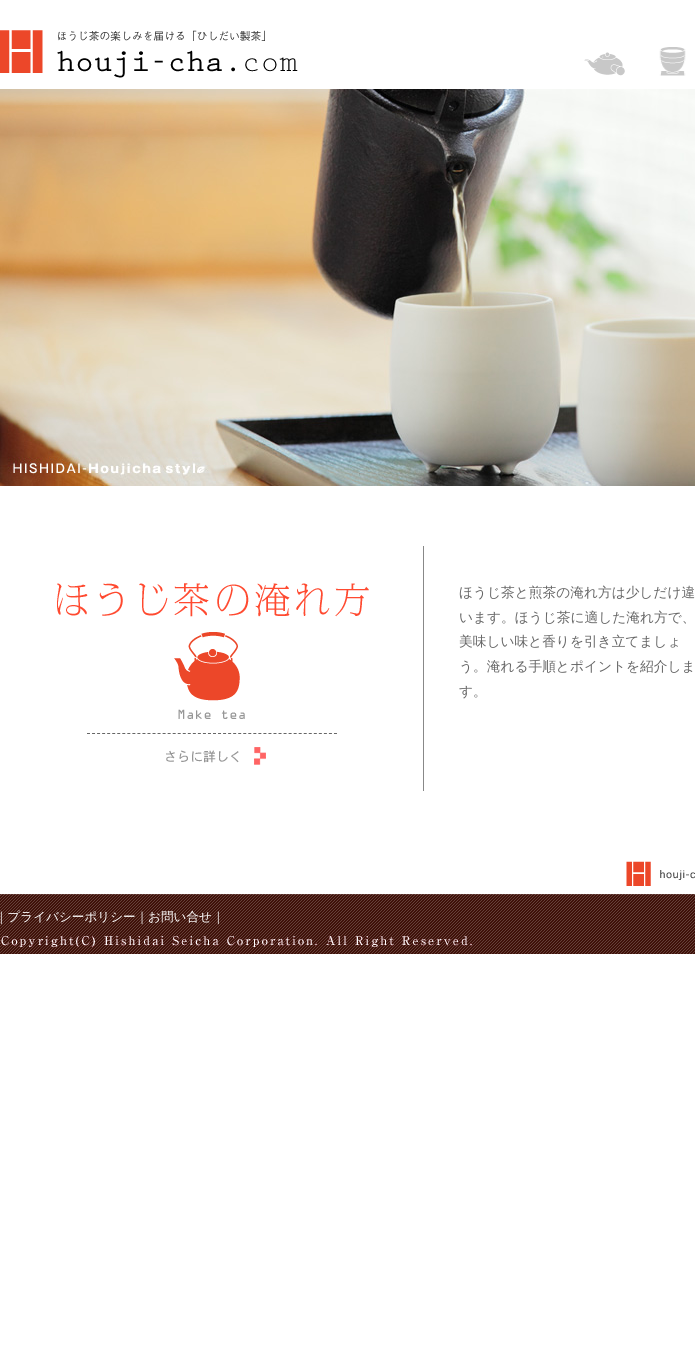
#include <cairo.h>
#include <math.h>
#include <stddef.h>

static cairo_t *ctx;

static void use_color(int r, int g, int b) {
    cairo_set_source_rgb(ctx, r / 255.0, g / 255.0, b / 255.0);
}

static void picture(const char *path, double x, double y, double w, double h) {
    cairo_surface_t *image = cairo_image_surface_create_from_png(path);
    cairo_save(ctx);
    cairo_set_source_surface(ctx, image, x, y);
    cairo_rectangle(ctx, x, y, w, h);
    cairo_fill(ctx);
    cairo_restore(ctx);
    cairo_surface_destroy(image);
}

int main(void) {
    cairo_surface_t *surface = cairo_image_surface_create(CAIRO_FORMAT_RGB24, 695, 1371);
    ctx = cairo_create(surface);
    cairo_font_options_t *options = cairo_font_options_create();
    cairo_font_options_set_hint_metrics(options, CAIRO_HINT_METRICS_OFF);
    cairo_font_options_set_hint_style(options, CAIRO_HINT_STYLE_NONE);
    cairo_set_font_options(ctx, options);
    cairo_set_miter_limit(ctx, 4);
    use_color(255, 255, 255);
    cairo_paint(ctx);
    picture("img1.png", 0, 30, 298, 48);
    picture("img2.png", 584, 52, 41, 24);
    picture("img3.png", 659, 47, 27, 29);
    picture("img4.png", 0, 89, 695, 397);
    use_color(136, 136, 136);
    cairo_rectangle(ctx, 423, 546, 1, 245);
    cairo_fill(ctx);
    picture("img5.png", 57, 583, 312, 136);
    cairo_new_path(ctx);
    cairo_move_to(ctx, 87, 733.5);
    cairo_line_to(ctx, 337, 733.5);
    use_color(102, 102, 102);
    cairo_set_line_width(ctx, 1);
    cairo_set_dash(ctx, (double[]){3, 2.04}, 2, 0);
    cairo_stroke(ctx);
    picture("img6.png", 166, 747, 100, 18);
    cairo_select_font_face(ctx, "WenQuanYi Zen Hei Medium", CAIRO_FONT_SLANT_NORMAL, CAIRO_FONT_WEIGHT_NORMAL);
    cairo_set_font_size(ctx, 13.7);
    cairo_move_to(ctx, 459, 597);
    cairo_show_text(ctx, "ほうじ茶と煎茶の淹れ方は少しだけ違");
    cairo_move_to(ctx, 459, 622);
    cairo_show_text(ctx, "います。ほうじ茶に適した淹れ方で、");
    cairo_move_to(ctx, 459, 646);
    cairo_show_text(ctx, "美味しい味と香りを引き立てましょ");
    cairo_move_to(ctx, 459, 671);
    cairo_show_text(ctx, "う。淹れる手順とポイントを紹介しま");
    cairo_move_to(ctx, 459, 696);
    cairo_show_text(ctx, "す。");
    picture("img7.png", 626, 861, 69, 25);
    picture("img8.png", 0, 894, 695, 60);
    cairo_set_font_size(ctx, 12.6);
    use_color(255, 255, 255);
    cairo_move_to(ctx, -5, 921);
    cairo_show_text(ctx, "｜プライバシーポリシー｜お問い合せ");
    cairo_move_to(ctx, 212, 921);
    cairo_show_text(ctx, "｜");
    picture("img9.png", 1, 936, 471, 11);
    cairo_surface_write_to_png(surface, "result.png");
    cairo_font_options_destroy(options);
    cairo_destroy(ctx);
    cairo_surface_destroy(surface);
    return 0;
}
